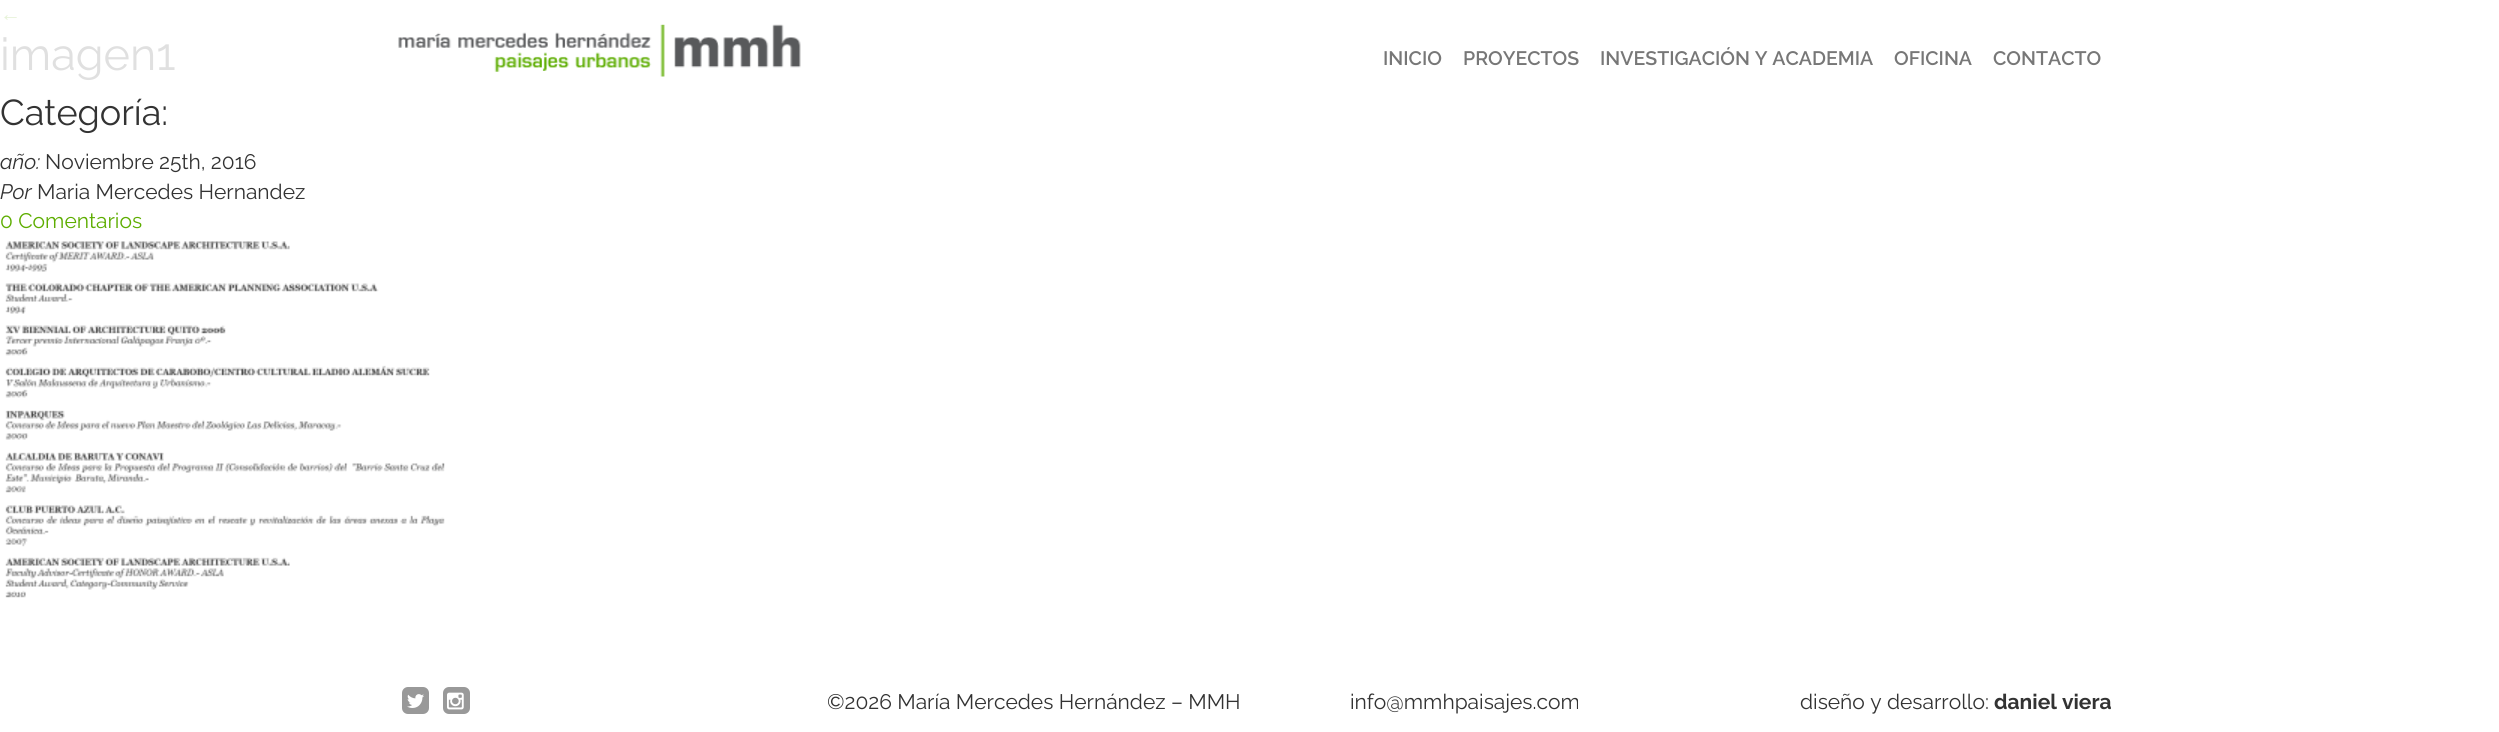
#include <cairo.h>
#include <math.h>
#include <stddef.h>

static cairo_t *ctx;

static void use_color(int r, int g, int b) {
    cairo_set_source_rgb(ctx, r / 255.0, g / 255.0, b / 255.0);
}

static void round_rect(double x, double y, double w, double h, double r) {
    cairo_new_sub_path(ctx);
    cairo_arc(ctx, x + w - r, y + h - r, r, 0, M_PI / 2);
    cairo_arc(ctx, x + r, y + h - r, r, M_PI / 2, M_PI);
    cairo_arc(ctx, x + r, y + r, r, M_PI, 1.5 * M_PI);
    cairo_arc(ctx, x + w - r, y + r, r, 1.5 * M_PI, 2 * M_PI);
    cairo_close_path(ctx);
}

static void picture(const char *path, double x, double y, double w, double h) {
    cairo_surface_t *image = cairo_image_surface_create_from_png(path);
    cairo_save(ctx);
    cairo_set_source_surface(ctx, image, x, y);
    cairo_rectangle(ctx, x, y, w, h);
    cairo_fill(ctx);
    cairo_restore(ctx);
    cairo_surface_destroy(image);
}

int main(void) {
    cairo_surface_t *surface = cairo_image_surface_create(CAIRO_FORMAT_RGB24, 2499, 732);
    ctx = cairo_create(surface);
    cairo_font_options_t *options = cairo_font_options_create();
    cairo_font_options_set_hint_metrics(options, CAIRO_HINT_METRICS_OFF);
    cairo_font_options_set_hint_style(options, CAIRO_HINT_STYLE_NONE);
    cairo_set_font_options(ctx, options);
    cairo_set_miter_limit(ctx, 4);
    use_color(255, 255, 255);
    cairo_paint(ctx);
    cairo_select_font_face(ctx, "Liberation Sans", CAIRO_FONT_SLANT_NORMAL, CAIRO_FONT_WEIGHT_NORMAL);
    cairo_set_font_size(ctx, 21);
    use_color(231, 243, 217);
    cairo_move_to(ctx, 0, 21);
    cairo_show_text(ctx, "←");
    cairo_select_font_face(ctx, "Raleway", CAIRO_FONT_SLANT_NORMAL, CAIRO_FONT_WEIGHT_NORMAL);
    cairo_set_font_size(ctx, 45);
    use_color(224, 224, 224);
    cairo_move_to(ctx, 0, 70);
    cairo_show_text(ctx, "imagen1");
    cairo_set_font_size(ctx, 36);
    use_color(51, 51, 51);
    cairo_move_to(ctx, 0, 125);
    cairo_show_text(ctx, "Categoría:");
    cairo_select_font_face(ctx, "Raleway", CAIRO_FONT_SLANT_ITALIC, CAIRO_FONT_WEIGHT_NORMAL);
    cairo_set_font_size(ctx, 21);
    cairo_move_to(ctx, 0, 169);
    cairo_show_text(ctx, "año:");
    cairo_select_font_face(ctx, "Raleway", CAIRO_FONT_SLANT_NORMAL, CAIRO_FONT_WEIGHT_NORMAL);
    cairo_move_to(ctx, 45, 169);
    cairo_show_text(ctx, "Noviembre 25th, 2016");
    cairo_select_font_face(ctx, "Raleway", CAIRO_FONT_SLANT_ITALIC, CAIRO_FONT_WEIGHT_NORMAL);
    cairo_move_to(ctx, 0, 199);
    cairo_show_text(ctx, "Por");
    cairo_select_font_face(ctx, "Raleway", CAIRO_FONT_SLANT_NORMAL, CAIRO_FONT_WEIGHT_NORMAL);
    cairo_move_to(ctx, 37, 199);
    cairo_show_text(ctx, "Maria Mercedes Hernandez");
    use_color(93, 173, 0);
    cairo_move_to(ctx, 0, 228);
    cairo_show_text(ctx, "0 Comentarios");
    picture("img1.png", 5, 241, 440, 357);
    picture("img2.png", 398, 24, 403, 53);
    cairo_select_font_face(ctx, "Raleway SemiBold", CAIRO_FONT_SLANT_NORMAL, CAIRO_FONT_WEIGHT_NORMAL);
    cairo_set_font_size(ctx, 19.5);
    use_color(119, 119, 119);
    cairo_move_to(ctx, 1383, 65);
    cairo_show_text(ctx, "INICIO");
    cairo_move_to(ctx, 1463, 65);
    cairo_show_text(ctx, "PROYECTOS");
    cairo_move_to(ctx, 1600, 65);
    cairo_show_text(ctx, "INVESTIGACIÓN Y ACADEMIA");
    cairo_move_to(ctx, 1894, 65);
    cairo_show_text(ctx, "OFICINA");
    cairo_move_to(ctx, 1993, 65);
    cairo_show_text(ctx, "CONTACTO");
    use_color(153, 153, 153);
    round_rect(402, 687, 27, 27, 6);
    cairo_fill(ctx);
    picture("img3.png", 407, 694, 17, 14);
    round_rect(443, 687, 27, 27, 6);
    cairo_fill(ctx);
    picture("img4.png", 447, 692, 17, 18);
    cairo_select_font_face(ctx, "Raleway", CAIRO_FONT_SLANT_NORMAL, CAIRO_FONT_WEIGHT_NORMAL);
    cairo_set_font_size(ctx, 21);
    use_color(51, 51, 51);
    cairo_move_to(ctx, 827, 709);
    cairo_show_text(ctx, "©2026 María Mercedes Hernández – MMH");
    cairo_move_to(ctx, 1350, 709);
    cairo_show_text(ctx, "info@mmhpaisajes.com");
    cairo_move_to(ctx, 1800, 709);
    cairo_show_text(ctx, "diseño y desarrollo:");
    cairo_select_font_face(ctx, "Raleway", CAIRO_FONT_SLANT_NORMAL, CAIRO_FONT_WEIGHT_BOLD);
    cairo_move_to(ctx, 1994, 709);
    cairo_show_text(ctx, "daniel viera");
    cairo_surface_write_to_png(surface, "result.png");
    cairo_font_options_destroy(options);
    cairo_destroy(ctx);
    cairo_surface_destroy(surface);
    return 0;
}
